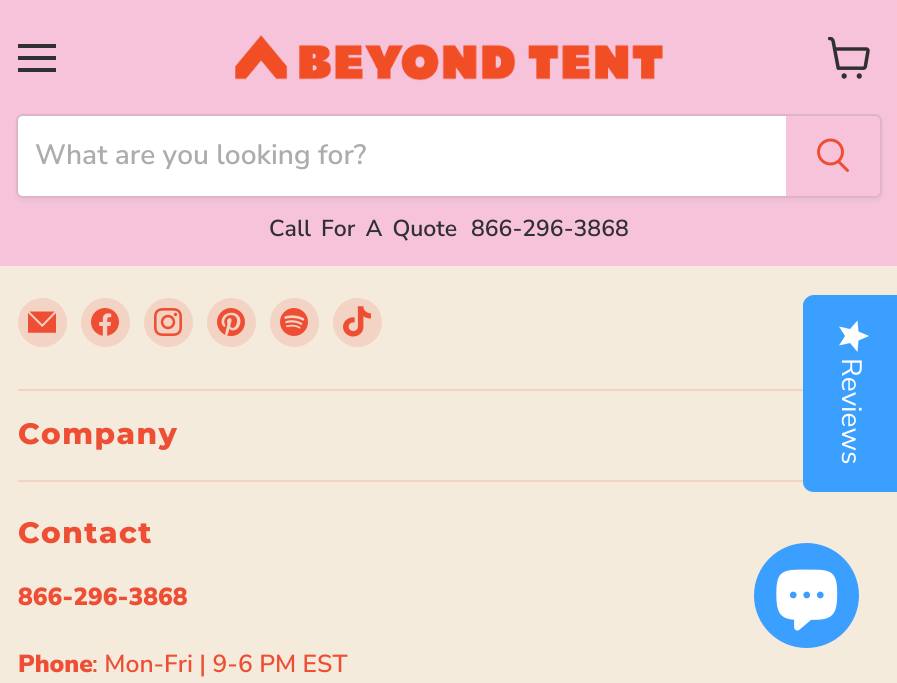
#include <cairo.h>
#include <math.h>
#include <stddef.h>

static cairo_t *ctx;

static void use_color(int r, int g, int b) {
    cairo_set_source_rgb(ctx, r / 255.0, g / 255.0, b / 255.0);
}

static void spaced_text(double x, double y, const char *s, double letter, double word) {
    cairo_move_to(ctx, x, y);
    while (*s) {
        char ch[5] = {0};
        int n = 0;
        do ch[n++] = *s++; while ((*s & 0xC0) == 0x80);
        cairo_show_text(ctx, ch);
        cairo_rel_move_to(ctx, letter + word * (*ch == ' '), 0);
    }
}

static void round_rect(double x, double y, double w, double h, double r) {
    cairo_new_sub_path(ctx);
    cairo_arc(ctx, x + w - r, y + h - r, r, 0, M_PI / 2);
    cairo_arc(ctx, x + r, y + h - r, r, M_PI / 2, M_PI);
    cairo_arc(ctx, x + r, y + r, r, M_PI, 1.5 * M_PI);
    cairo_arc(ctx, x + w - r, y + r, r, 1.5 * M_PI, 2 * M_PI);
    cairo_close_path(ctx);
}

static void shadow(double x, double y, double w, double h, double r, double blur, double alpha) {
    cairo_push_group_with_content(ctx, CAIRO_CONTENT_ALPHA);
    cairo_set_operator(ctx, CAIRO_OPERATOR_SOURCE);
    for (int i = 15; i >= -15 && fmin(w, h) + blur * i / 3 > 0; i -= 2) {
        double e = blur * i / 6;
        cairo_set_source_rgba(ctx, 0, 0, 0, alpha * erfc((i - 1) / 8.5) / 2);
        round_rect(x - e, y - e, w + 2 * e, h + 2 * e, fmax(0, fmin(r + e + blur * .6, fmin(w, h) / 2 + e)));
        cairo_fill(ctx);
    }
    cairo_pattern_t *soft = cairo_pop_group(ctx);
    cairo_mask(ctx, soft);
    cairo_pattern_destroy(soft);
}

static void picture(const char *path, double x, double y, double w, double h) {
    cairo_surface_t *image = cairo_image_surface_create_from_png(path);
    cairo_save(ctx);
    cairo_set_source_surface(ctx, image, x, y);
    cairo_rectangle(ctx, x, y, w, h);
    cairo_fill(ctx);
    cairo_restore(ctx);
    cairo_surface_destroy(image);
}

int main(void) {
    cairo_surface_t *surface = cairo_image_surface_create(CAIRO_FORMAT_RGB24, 897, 683);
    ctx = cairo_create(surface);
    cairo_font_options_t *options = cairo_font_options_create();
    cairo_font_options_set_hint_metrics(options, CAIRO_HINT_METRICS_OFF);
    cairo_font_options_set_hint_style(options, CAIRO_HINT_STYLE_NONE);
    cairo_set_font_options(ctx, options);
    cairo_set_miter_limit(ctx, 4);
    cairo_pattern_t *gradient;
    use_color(244, 235, 220);
    cairo_paint(ctx);
    use_color(246, 195, 219);
    cairo_rectangle(ctx, 0, 0, 897, 266);
    cairo_fill(ctx);
    use_color(48, 48, 48);
    cairo_rectangle(ctx, 18, 44, 38, 4);
    cairo_fill(ctx);
    cairo_rectangle(ctx, 18, 56, 38, 4);
    cairo_fill(ctx);
    cairo_rectangle(ctx, 18, 68, 38, 4);
    cairo_fill(ctx);
    picture("img1.png", 828, 37, 42, 42);
    picture("img2.png", 235, 35, 428, 46);
    cairo_save(ctx);
    cairo_set_fill_rule(ctx, CAIRO_FILL_RULE_EVEN_ODD);
    cairo_new_path(ctx);
    cairo_move_to(ctx, 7, 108);
    cairo_line_to(ctx, 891, 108);
    cairo_line_to(ctx, 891, 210);
    cairo_line_to(ctx, 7, 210);
    cairo_close_path(ctx);
    cairo_move_to(ctx, 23, 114);
    cairo_line_to(ctx, 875, 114);
    cairo_curve_to(ctx, 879, 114, 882, 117, 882, 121);
    cairo_line_to(ctx, 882, 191);
    cairo_curve_to(ctx, 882, 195, 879, 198, 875, 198);
    cairo_line_to(ctx, 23, 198);
    cairo_curve_to(ctx, 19, 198, 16, 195, 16, 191);
    cairo_line_to(ctx, 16, 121);
    cairo_curve_to(ctx, 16, 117, 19, 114, 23, 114);
    cairo_close_path(ctx);
    cairo_clip(ctx);
    use_color(128, 128, 128);
    shadow(16, 117, 866, 84, 7, 2.5, 0.11);
    cairo_restore(ctx);
    round_rect(17, 115, 864, 82, 6);
    cairo_set_source_rgba(ctx, 0.502, 0.502, 0.502, 0.2);
    cairo_stroke(ctx);
    use_color(255, 255, 255);
    cairo_new_path(ctx);
    cairo_move_to(ctx, 23, 116);
    cairo_line_to(ctx, 786, 116);
    cairo_line_to(ctx, 786, 196);
    cairo_line_to(ctx, 23, 196);
    cairo_curve_to(ctx, 20, 196, 18, 194, 18, 191);
    cairo_line_to(ctx, 18, 121);
    cairo_curve_to(ctx, 18, 118, 20, 116, 23, 116);
    cairo_close_path(ctx);
    cairo_fill(ctx);
    cairo_select_font_face(ctx, "Nunito Sans SemiBold", CAIRO_FONT_SLANT_NORMAL, CAIRO_FONT_WEIGHT_NORMAL);
    cairo_set_font_size(ctx, 28);
    use_color(172, 172, 172);
    cairo_move_to(ctx, 35, 164);
    cairo_show_text(ctx, "What are you looking for?");
    use_color(246, 195, 219);
    cairo_new_path(ctx);
    cairo_move_to(ctx, 787, 117);
    cairo_line_to(ctx, 875, 117);
    cairo_curve_to(ctx, 877, 117, 879, 119, 879, 121);
    cairo_line_to(ctx, 879, 191);
    cairo_curve_to(ctx, 879, 193, 877, 195, 875, 195);
    cairo_line_to(ctx, 787, 195);
    cairo_close_path(ctx);
    cairo_fill_preserve(ctx);
    cairo_stroke(ctx);
    cairo_new_path(ctx);
    cairo_move_to(ctx, 847.5, 170.5);
    cairo_line_to(ctx, 839, 162);
    use_color(238, 78, 52);
    cairo_set_line_width(ctx, 3);
    cairo_set_line_cap(ctx, CAIRO_LINE_CAP_ROUND);
    cairo_stroke(ctx);
    cairo_arc(ctx, 830.5, 152, 12, 0, 2 * M_PI);
    cairo_set_line_cap(ctx, CAIRO_LINE_CAP_BUTT);
    cairo_stroke(ctx);
    cairo_set_font_size(ctx, 23);
    use_color(48, 48, 48);
    spaced_text(269, 236, "Call For A Quote", 0, 4);
    cairo_move_to(ctx, 471, 236);
    cairo_show_text(ctx, "866-296-3868");
    use_color(243, 211, 195);
    cairo_rectangle(ctx, 18, 389, 785, 2);
    cairo_fill(ctx);
    cairo_arc(ctx, 42.5, 322.5, 24.5, 0, 2 * M_PI);
    cairo_fill(ctx);
    picture("img3.png", 28, 311, 28, 22);
    cairo_arc(ctx, 105.5, 322.5, 24.5, 0, 2 * M_PI);
    cairo_fill(ctx);
    picture("img4.png", 91, 308, 28, 28);
    cairo_arc(ctx, 168.5, 322.5, 24.5, 0, 2 * M_PI);
    cairo_fill(ctx);
    picture("img5.png", 154, 308, 28, 28);
    cairo_arc(ctx, 231.5, 322.5, 24.5, 0, 2 * M_PI);
    cairo_fill(ctx);
    picture("img6.png", 217, 308, 28, 29);
    cairo_arc(ctx, 294.5, 322.5, 24.5, 0, 2 * M_PI);
    cairo_fill(ctx);
    picture("img7.png", 280, 308, 28, 28);
    cairo_arc(ctx, 357.5, 322.5, 24.5, 0, 2 * M_PI);
    cairo_fill(ctx);
    picture("img8.png", 343, 306, 28, 31);
    cairo_rectangle(ctx, 18, 480, 785, 2);
    cairo_fill(ctx);
    cairo_select_font_face(ctx, "Montserrat ExtraBold", CAIRO_FONT_SLANT_NORMAL, CAIRO_FONT_WEIGHT_NORMAL);
    cairo_set_font_size(ctx, 29.5);
    use_color(238, 78, 52);
    spaced_text(18, 444, "Company", 1.5, 0);
    spaced_text(18, 543, "Contact", 1.5, 0);
    cairo_select_font_face(ctx, "Nunito Sans Black", CAIRO_FONT_SLANT_NORMAL, CAIRO_FONT_WEIGHT_NORMAL);
    cairo_set_font_size(ctx, 24.6);
    cairo_move_to(ctx, 18, 605);
    cairo_show_text(ctx, "866-296-3868");
    cairo_move_to(ctx, 18, 672);
    cairo_show_text(ctx, "Phone");
    cairo_select_font_face(ctx, "Nunito Sans SemiBold", CAIRO_FONT_SLANT_NORMAL, CAIRO_FONT_WEIGHT_NORMAL);
    cairo_move_to(ctx, 92, 672);
    cairo_show_text(ctx, ": Mon-Fri | 9-6 PM EST");
    use_color(59, 159, 255);
    cairo_new_path(ctx);
    cairo_move_to(ctx, 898, 295);
    cairo_line_to(ctx, 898, 492);
    cairo_line_to(ctx, 814, 492);
    cairo_curve_to(ctx, 808, 492, 803, 488, 803, 482);
    cairo_line_to(ctx, 803, 305);
    cairo_curve_to(ctx, 803, 300, 808, 295, 814, 295);
    cairo_close_path(ctx);
    cairo_fill(ctx);
    gradient = cairo_pattern_create_linear(869, 320, 869, 352);
    cairo_pattern_add_color_stop_rgba(gradient, 1, 1, 1, 1, 1);
    cairo_pattern_add_color_stop_rgba(gradient, 1, 0.918, 0.918, 0.918, 1);
    cairo_set_source(ctx, gradient);
    cairo_pattern_destroy(gradient);
    cairo_new_path(ctx);
    cairo_move_to(ctx, 845, 336);
    cairo_line_to(ctx, 839, 345.5);
    cairo_line_to(ctx, 850, 343);
    cairo_line_to(ctx, 857.5, 352);
    cairo_line_to(ctx, 858.5, 340.5);
    cairo_line_to(ctx, 869, 336);
    cairo_line_to(ctx, 858.5, 331.5);
    cairo_line_to(ctx, 857.5, 320.5);
    cairo_line_to(ctx, 850, 329);
    cairo_line_to(ctx, 839, 326.5);
    cairo_close_path(ctx);
    cairo_fill(ctx);
    cairo_select_font_face(ctx, "Nunito Sans ExtraLight", CAIRO_FONT_SLANT_NORMAL, CAIRO_FONT_WEIGHT_NORMAL);
    cairo_set_font_size(ctx, 28);
    use_color(255, 255, 255);
    cairo_save(ctx);
    cairo_translate(ctx, 842, 358);
    cairo_rotate(ctx, 90 * M_PI / 180);
    cairo_move_to(ctx, 0, 0);
    cairo_show_text(ctx, "Reviews");
    cairo_restore(ctx);
    use_color(59, 159, 255);
    cairo_new_path(ctx);
    cairo_arc(ctx, 806.5, 595.5, 52.5, 0, 2 * M_PI);
    cairo_fill(ctx);
    picture("img9.png", 776, 569, 62, 62);
    cairo_surface_write_to_png(surface, "result.png");
    cairo_font_options_destroy(options);
    cairo_destroy(ctx);
    cairo_surface_destroy(surface);
    return 0;
}
